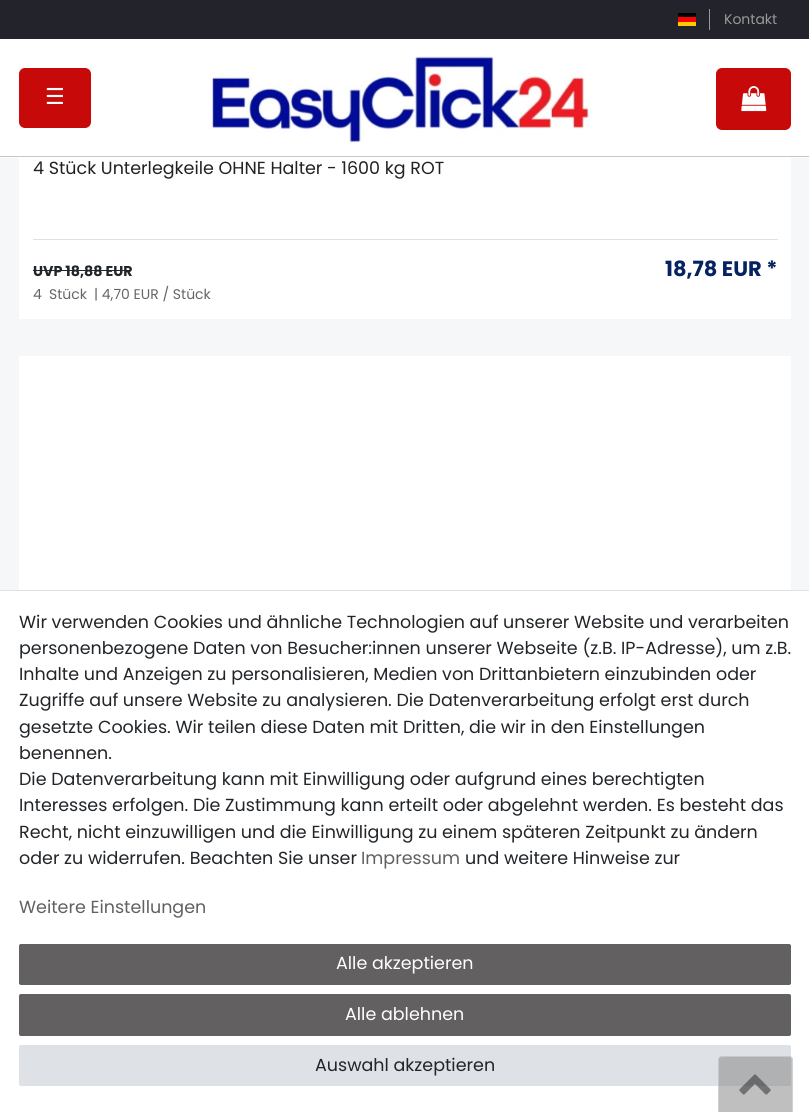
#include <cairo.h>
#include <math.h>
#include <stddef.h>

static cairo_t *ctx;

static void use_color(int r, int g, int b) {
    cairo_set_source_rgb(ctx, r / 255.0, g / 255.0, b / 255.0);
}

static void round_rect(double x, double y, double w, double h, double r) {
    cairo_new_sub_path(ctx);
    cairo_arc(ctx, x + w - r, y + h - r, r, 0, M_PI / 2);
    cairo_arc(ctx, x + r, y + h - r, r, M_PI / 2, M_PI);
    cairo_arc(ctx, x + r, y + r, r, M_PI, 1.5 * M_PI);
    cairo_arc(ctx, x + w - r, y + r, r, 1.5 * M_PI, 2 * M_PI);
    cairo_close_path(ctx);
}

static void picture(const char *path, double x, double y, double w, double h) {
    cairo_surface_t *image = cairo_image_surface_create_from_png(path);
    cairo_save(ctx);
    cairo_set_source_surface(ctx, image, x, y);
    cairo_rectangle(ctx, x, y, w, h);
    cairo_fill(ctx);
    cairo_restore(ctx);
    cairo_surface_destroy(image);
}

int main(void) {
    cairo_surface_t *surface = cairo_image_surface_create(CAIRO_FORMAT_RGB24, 809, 1112);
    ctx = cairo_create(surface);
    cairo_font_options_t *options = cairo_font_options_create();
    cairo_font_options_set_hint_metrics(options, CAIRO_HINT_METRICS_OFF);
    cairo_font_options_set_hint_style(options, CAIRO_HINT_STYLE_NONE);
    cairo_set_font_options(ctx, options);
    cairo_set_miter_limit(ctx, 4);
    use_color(246, 247, 249);
    cairo_paint(ctx);
    use_color(35, 35, 43);
    cairo_rectangle(ctx, 0, 0, 809, 39);
    cairo_fill(ctx);
    use_color(255, 204, 0);
    cairo_rectangle(ctx, 678, 22, 18, 4);
    cairo_fill(ctx);
    use_color(0, 0, 0);
    cairo_rectangle(ctx, 678, 13, 18, 4);
    cairo_fill(ctx);
    use_color(255, 0, 0);
    cairo_rectangle(ctx, 678, 17, 18, 5);
    cairo_fill(ctx);
    use_color(153, 153, 153);
    cairo_rectangle(ctx, 709, 9, 1, 21);
    cairo_fill(ctx);
    cairo_select_font_face(ctx, "Poppins", CAIRO_FONT_SLANT_NORMAL, CAIRO_FONT_WEIGHT_NORMAL);
    cairo_set_font_size(ctx, 14);
    cairo_move_to(ctx, 724, 24);
    cairo_show_text(ctx, "Kontakt");
    use_color(255, 255, 255);
    cairo_rectangle(ctx, 0, 39, 809, 119);
    cairo_fill(ctx);
    use_color(196, 199, 200);
    cairo_rectangle(ctx, 0, 156, 809, 1);
    cairo_fill(ctx);
    use_color(199, 9, 9);
    round_rect(19, 68, 72, 60, 6);
    cairo_fill(ctx);
    cairo_select_font_face(ctx, "DejaVu Sans", CAIRO_FONT_SLANT_NORMAL, CAIRO_FONT_WEIGHT_NORMAL);
    cairo_set_font_size(ctx, 22);
    use_color(255, 255, 255);
    cairo_move_to(ctx, 45, 104);
    cairo_show_text(ctx, "☰");
    picture("img1.png", 208, 56, 381, 87);
    use_color(199, 9, 9);
    round_rect(716, 68, 75, 62, 6);
    cairo_fill(ctx);
    picture("img2.png", 741, 86, 26, 26);
    use_color(255, 255, 255);
    cairo_rectangle(ctx, 19, 158, 772, 161);
    cairo_fill(ctx);
    cairo_select_font_face(ctx, "Poppins", CAIRO_FONT_SLANT_NORMAL, CAIRO_FONT_WEIGHT_NORMAL);
    cairo_set_font_size(ctx, 17.5);
    use_color(34, 34, 34);
    cairo_move_to(ctx, 33, 174);
    cairo_show_text(ctx, "4 Stück Unterlegkeile OHNE Halter - 1600 kg ROT");
    use_color(222, 226, 230);
    cairo_rectangle(ctx, 33, 239, 745, 1);
    cairo_fill(ctx);
    cairo_select_font_face(ctx, "Poppins", CAIRO_FONT_SLANT_NORMAL, CAIRO_FONT_WEIGHT_BOLD);
    cairo_set_font_size(ctx, 14.25);
    use_color(33, 37, 41);
    cairo_move_to(ctx, 33, 276);
    cairo_show_text(ctx, "UVP 18,88 EUR");
    cairo_rectangle(ctx, 33, 270, 98, 1);
    cairo_fill(ctx);
    cairo_set_font_size(ctx, 21);
    use_color(4, 35, 96);
    cairo_move_to(ctx, 665, 276);
    cairo_show_text(ctx, "18,78 EUR *");
    cairo_select_font_face(ctx, "Poppins", CAIRO_FONT_SLANT_NORMAL, CAIRO_FONT_WEIGHT_NORMAL);
    cairo_set_font_size(ctx, 14);
    use_color(102, 102, 102);
    cairo_move_to(ctx, 33, 299);
    cairo_show_text(ctx, "4");
    cairo_move_to(ctx, 49, 299);
    cairo_show_text(ctx, "Stück");
    cairo_move_to(ctx, 94, 299);
    cairo_show_text(ctx, "| 4,70 EUR / Stück");
    use_color(255, 255, 255);
    cairo_rectangle(ctx, 19, 356, 772, 234);
    cairo_fill(ctx);
    cairo_rectangle(ctx, 0, 591, 809, 521);
    cairo_fill(ctx);
    use_color(222, 226, 230);
    cairo_rectangle(ctx, 0, 590, 809, 1);
    cairo_fill(ctx);
    cairo_set_font_size(ctx, 17.5);
    use_color(33, 37, 41);
    cairo_move_to(ctx, 19, 628);
    cairo_show_text(ctx, "Wir verwenden Cookies und ähnliche Technologien auf unserer Website und verarbeiten");
    cairo_move_to(ctx, 19, 654);
    cairo_show_text(ctx, "personenbezogene Daten von Besucher:innen unserer Webseite (z.B. IP-Adresse), um z.B.");
    cairo_move_to(ctx, 19, 680);
    cairo_show_text(ctx, "Inhalte und Anzeigen zu personalisieren, Medien von Drittanbietern einzubinden oder");
    cairo_move_to(ctx, 19, 706);
    cairo_show_text(ctx, "Zugriffe auf unsere Website zu analysieren. Die Datenverarbeitung erfolgt erst durch");
    cairo_move_to(ctx, 19, 733);
    cairo_show_text(ctx, "gesetzte Cookies. Wir teilen diese Daten mit Dritten, die wir in den Einstellungen");
    cairo_move_to(ctx, 19, 759);
    cairo_show_text(ctx, "benennen.");
    cairo_move_to(ctx, 19, 785);
    cairo_show_text(ctx, "Die Datenverarbeitung kann mit Einwilligung oder aufgrund eines berechtigten");
    cairo_move_to(ctx, 19, 811);
    cairo_show_text(ctx, "Interesses erfolgen. Die Zustimmung kann erteilt oder abgelehnt werden. Es besteht das");
    cairo_move_to(ctx, 19, 838);
    cairo_show_text(ctx, "Recht, nicht einzuwilligen und die Einwilligung zu einem späteren Zeitpunkt zu ändern");
    cairo_move_to(ctx, 19, 864);
    cairo_show_text(ctx, "oder zu widerrufen. Beachten Sie unser");
    use_color(98, 96, 96);
    cairo_move_to(ctx, 361, 864);
    cairo_show_text(ctx, "Impressum");
    use_color(33, 37, 41);
    cairo_move_to(ctx, 465, 864);
    cairo_show_text(ctx, "und weitere Hinweise zur");
    use_color(98, 96, 96);
    cairo_move_to(ctx, 19, 913);
    cairo_show_text(ctx, "Weitere Einstellungen");
    round_rect(19.5, 944.5, 771, 40, 1.5);
    cairo_fill_preserve(ctx);
    cairo_set_line_width(ctx, 1);
    cairo_stroke(ctx);
    use_color(255, 255, 255);
    cairo_move_to(ctx, 336, 969);
    cairo_show_text(ctx, "Alle akzeptieren");
    use_color(98, 96, 96);
    round_rect(19.5, 994.5, 771, 41, 1.5);
    cairo_fill_preserve(ctx);
    cairo_stroke(ctx);
    use_color(255, 255, 255);
    cairo_move_to(ctx, 345, 1020);
    cairo_show_text(ctx, "Alle ablehnen");
    use_color(222, 226, 230);
    round_rect(19.5, 1045.5, 771, 40, 1.5);
    cairo_fill_preserve(ctx);
    cairo_stroke(ctx);
    use_color(33, 37, 41);
    cairo_move_to(ctx, 315, 1071);
    cairo_show_text(ctx, "Auswahl akzeptieren");
    cairo_set_source_rgba(ctx, 0.502, 0.502, 0.502, 0.5);
    round_rect(718, 1056, 75, 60, 4);
    cairo_fill(ctx);
    round_rect(718.5, 1056.5, 74, 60, 3.5);
    cairo_set_source_rgba(ctx, 0.871, 0.886, 0.902, 0.5);
    cairo_stroke(ctx);
    picture("img3.png", 739, 1074, 32, 21);
    cairo_surface_write_to_png(surface, "result.png");
    cairo_font_options_destroy(options);
    cairo_destroy(ctx);
    cairo_surface_destroy(surface);
    return 0;
}
